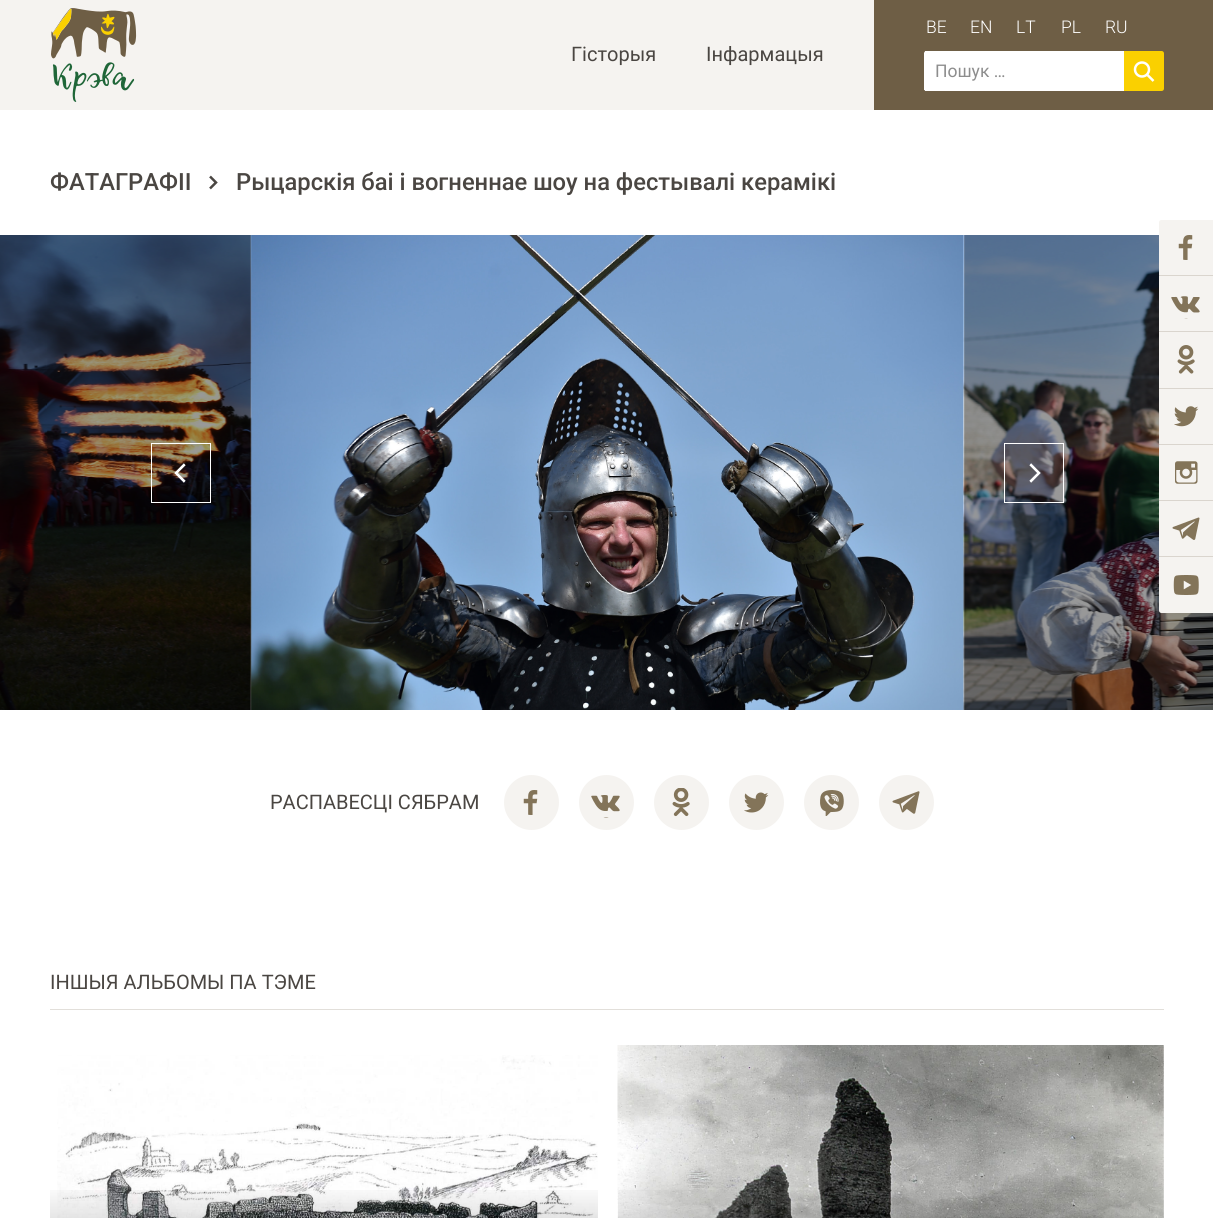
#include <cairo.h>
#include <math.h>
#include <stddef.h>

static cairo_t *ctx;

static void use_color(int r, int g, int b) {
    cairo_set_source_rgb(ctx, r / 255.0, g / 255.0, b / 255.0);
}

static void picture(const char *path, double x, double y, double w, double h) {
    cairo_surface_t *image = cairo_image_surface_create_from_png(path);
    cairo_save(ctx);
    cairo_set_source_surface(ctx, image, x, y);
    cairo_rectangle(ctx, x, y, w, h);
    cairo_fill(ctx);
    cairo_restore(ctx);
    cairo_surface_destroy(image);
}

int main(void) {
    cairo_surface_t *surface = cairo_image_surface_create(CAIRO_FORMAT_RGB24, 1213, 1218);
    ctx = cairo_create(surface);
    cairo_font_options_t *options = cairo_font_options_create();
    cairo_font_options_set_hint_metrics(options, CAIRO_HINT_METRICS_OFF);
    cairo_font_options_set_hint_style(options, CAIRO_HINT_STYLE_NONE);
    cairo_set_font_options(ctx, options);
    cairo_set_miter_limit(ctx, 4);
    cairo_pattern_t *gradient;
    use_color(255, 255, 255);
    cairo_paint(ctx);
    use_color(245, 243, 240);
    cairo_rectangle(ctx, 0, 0, 874, 110);
    cairo_fill(ctx);
    picture("img1.png", 51, 8, 86, 51);
    picture("img2.png", 52, 62, 83, 40);
    cairo_select_font_face(ctx, "Roboto", CAIRO_FONT_SLANT_NORMAL, CAIRO_FONT_WEIGHT_NORMAL);
    cairo_set_font_size(ctx, 20);
    use_color(74, 70, 66);
    cairo_move_to(ctx, 571, 61);
    cairo_show_text(ctx, "Гісторыя");
    cairo_move_to(ctx, 706, 61);
    cairo_show_text(ctx, "Iнфармацыя");
    use_color(110, 94, 69);
    cairo_rectangle(ctx, 874, 0, 339, 110);
    cairo_fill(ctx);
    cairo_select_font_face(ctx, "Roboto Light", CAIRO_FONT_SLANT_NORMAL, CAIRO_FONT_WEIGHT_NORMAL);
    cairo_set_font_size(ctx, 17.5);
    use_color(255, 255, 255);
    cairo_move_to(ctx, 926, 33);
    cairo_show_text(ctx, "BE");
    cairo_move_to(ctx, 970, 33);
    cairo_show_text(ctx, "EN");
    cairo_move_to(ctx, 1016, 33);
    cairo_show_text(ctx, "LT");
    cairo_move_to(ctx, 1061, 33);
    cairo_show_text(ctx, "PL");
    cairo_move_to(ctx, 1105, 33);
    cairo_show_text(ctx, "RU");
    cairo_new_path(ctx);
    cairo_move_to(ctx, 926.5, 51);
    cairo_line_to(ctx, 1124, 51);
    cairo_line_to(ctx, 1124, 91);
    cairo_line_to(ctx, 926.5, 91);
    cairo_curve_to(ctx, 925, 91, 924, 90, 924, 88.5);
    cairo_line_to(ctx, 924, 53.5);
    cairo_curve_to(ctx, 924, 52, 925, 51, 926.5, 51);
    cairo_close_path(ctx);
    cairo_fill(ctx);
    cairo_rectangle(ctx, 925, 51, 2, 1);
    cairo_fill(ctx);
    cairo_rectangle(ctx, 925, 90, 2, 1);
    cairo_fill(ctx);
    cairo_rectangle(ctx, 924, 53, 1, 37);
    cairo_fill(ctx);
    cairo_select_font_face(ctx, "Roboto", CAIRO_FONT_SLANT_NORMAL, CAIRO_FONT_WEIGHT_NORMAL);
    use_color(141, 141, 141);
    cairo_move_to(ctx, 935, 77);
    cairo_show_text(ctx, "Пошук …");
    use_color(250, 208, 0);
    cairo_new_path(ctx);
    cairo_move_to(ctx, 1124, 51);
    cairo_line_to(ctx, 1161.5, 51);
    cairo_curve_to(ctx, 1163, 51, 1164, 52, 1164, 53.5);
    cairo_line_to(ctx, 1164, 88.5);
    cairo_curve_to(ctx, 1164, 90, 1163, 91, 1161.5, 91);
    cairo_line_to(ctx, 1124, 91);
    cairo_close_path(ctx);
    cairo_fill(ctx);
    cairo_arc(ctx, 1142, 69.5, 7, 0, 2 * M_PI);
    use_color(255, 255, 255);
    cairo_set_line_width(ctx, 2.5);
    cairo_stroke(ctx);
    cairo_new_path(ctx);
    cairo_move_to(ctx, 1153.5, 81);
    cairo_line_to(ctx, 1147.5, 75);
    cairo_stroke(ctx);
    cairo_select_font_face(ctx, "Roboto Medium", CAIRO_FONT_SLANT_NORMAL, CAIRO_FONT_WEIGHT_NORMAL);
    cairo_set_font_size(ctx, 23.75);
    use_color(74, 70, 66);
    cairo_move_to(ctx, 50, 190);
    cairo_show_text(ctx, "ФАТАГРАФІІ");
    cairo_new_path(ctx);
    cairo_move_to(ctx, 210, 188.5);
    cairo_line_to(ctx, 216, 182.5);
    cairo_line_to(ctx, 210, 176.5);
    cairo_stroke(ctx);
    cairo_move_to(ctx, 236, 190);
    cairo_show_text(ctx, "Рыцарскія баі і вогненнае шоу на фестывалі керамікі");
    picture("img10.png", 0, 235, 252, 475);
    picture("img11.png", 251, 235, 713, 475);
    picture("img12.png", 963, 235, 250, 475);
    use_color(245, 243, 240);
    cairo_new_path(ctx);
    cairo_move_to(ctx, 1161.5, 220);
    cairo_line_to(ctx, 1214, 220);
    cairo_line_to(ctx, 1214, 276);
    cairo_line_to(ctx, 1159, 276);
    cairo_line_to(ctx, 1159, 222.5);
    cairo_curve_to(ctx, 1159, 221, 1160, 220, 1161.5, 220);
    cairo_close_path(ctx);
    cairo_fill(ctx);
    use_color(218, 213, 206);
    cairo_rectangle(ctx, 1159, 275, 54, 1);
    cairo_fill(ctx);
    picture("img3.png", 1178, 235, 15, 25);
    use_color(245, 243, 240);
    cairo_rectangle(ctx, 1159, 276, 54, 112);
    cairo_fill(ctx);
    use_color(218, 213, 206);
    cairo_rectangle(ctx, 1159, 331, 54, 1);
    cairo_fill(ctx);
    picture("img4.png", 1171, 296, 29, 23);
    cairo_rectangle(ctx, 1159, 388, 54, 1);
    cairo_fill(ctx);
    picture("img5.png", 1177, 345, 18, 29);
    use_color(245, 243, 240);
    cairo_rectangle(ctx, 1159, 389, 54, 55);
    cairo_fill(ctx);
    use_color(218, 213, 206);
    cairo_rectangle(ctx, 1159, 444, 54, 1);
    cairo_fill(ctx);
    picture("img6.png", 1174, 406, 25, 21);
    use_color(245, 243, 240);
    cairo_rectangle(ctx, 1159, 445, 54, 55);
    cairo_fill(ctx);
    use_color(218, 213, 206);
    cairo_rectangle(ctx, 1159, 500, 54, 1);
    cairo_fill(ctx);
    picture("img7.png", 1175, 461, 23, 23);
    use_color(245, 243, 240);
    cairo_rectangle(ctx, 1159, 501, 54, 57);
    cairo_fill(ctx);
    use_color(218, 213, 206);
    cairo_rectangle(ctx, 1159, 556, 54, 1);
    cairo_fill(ctx);
    picture("img8.png", 1172, 517, 28, 23);
    use_color(245, 243, 240);
    cairo_new_path(ctx);
    cairo_move_to(ctx, 1159, 558);
    cairo_line_to(ctx, 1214, 558);
    cairo_line_to(ctx, 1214, 613);
    cairo_line_to(ctx, 1161.5, 613);
    cairo_curve_to(ctx, 1160, 613, 1159, 612, 1159, 610.5);
    cairo_close_path(ctx);
    cairo_fill(ctx);
    picture("img9.png", 1173, 575, 26, 20);
    cairo_rectangle(ctx, 151.5, 443.5, 59, 59);
    use_color(255, 255, 255);
    cairo_set_line_width(ctx, 1);
    cairo_stroke(ctx);
    picture("img13.png", 174, 463, 12, 20);
    cairo_rectangle(ctx, 1004.5, 443.5, 59, 59);
    cairo_stroke(ctx);
    picture("img14.png", 1029, 463, 12, 20);
    cairo_select_font_face(ctx, "Roboto", CAIRO_FONT_SLANT_NORMAL, CAIRO_FONT_WEIGHT_NORMAL);
    cairo_set_font_size(ctx, 20);
    use_color(74, 70, 66);
    cairo_move_to(ctx, 270, 809);
    cairo_show_text(ctx, "РАСПАВЕСЦІ СЯБРАМ");
    use_color(245, 243, 240);
    cairo_new_path(ctx);
    cairo_arc(ctx, 531.5, 802.5, 27.5, 0, 2 * M_PI);
    cairo_fill(ctx);
    picture("img3.png", 523, 790, 15, 25);
    cairo_arc(ctx, 606.5, 802.5, 27.5, 0, 2 * M_PI);
    cairo_fill(ctx);
    picture("img15.png", 591, 795, 29, 23);
    cairo_arc(ctx, 681.5, 802.5, 27.5, 0, 2 * M_PI);
    cairo_fill(ctx);
    picture("img16.png", 672, 788, 18, 29);
    cairo_arc(ctx, 756.5, 802.5, 27.5, 0, 2 * M_PI);
    cairo_fill(ctx);
    picture("img17.png", 744, 792, 25, 21);
    cairo_arc(ctx, 831.5, 802.5, 27.5, 0, 2 * M_PI);
    cairo_fill(ctx);
    picture("img18.png", 820, 790, 24, 26);
    cairo_arc(ctx, 906.5, 802.5, 27.5, 0, 2 * M_PI);
    cairo_fill(ctx);
    picture("img19.png", 892, 791, 28, 23);
    use_color(226, 223, 218);
    cairo_rectangle(ctx, 50, 1009, 1114, 1);
    cairo_fill(ctx);
    use_color(74, 70, 66);
    cairo_move_to(ctx, 50, 989);
    cairo_show_text(ctx, "ІНШЫЯ АЛЬБОМЫ ПА ТЭМЕ");
    picture("img20.png", 57, 1055, 541, 163);
    gradient = cairo_pattern_create_linear(324, 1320, 324, 1045);
    cairo_pattern_add_color_stop_rgba(gradient, 0, 0, 0, 0, 0.38);
    cairo_pattern_add_color_stop_rgba(gradient, 0.5, 0, 0, 0, 0);
    cairo_set_source(ctx, gradient);
    cairo_pattern_destroy(gradient);
    cairo_rectangle(ctx, 50, 1190, 548, 28);
    cairo_fill(ctx);
    picture("img21.png", 617, 1045, 547, 173);
    gradient = cairo_pattern_create_linear(891, 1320, 891, 1045);
    cairo_pattern_add_color_stop_rgba(gradient, 0, 0, 0, 0, 0.38);
    cairo_pattern_add_color_stop_rgba(gradient, 0.5, 0, 0, 0, 0);
    cairo_set_source(ctx, gradient);
    cairo_pattern_destroy(gradient);
    cairo_rectangle(ctx, 618, 1190, 546, 28);
    cairo_fill(ctx);
    cairo_surface_write_to_png(surface, "result.png");
    cairo_font_options_destroy(options);
    cairo_destroy(ctx);
    cairo_surface_destroy(surface);
    return 0;
}
